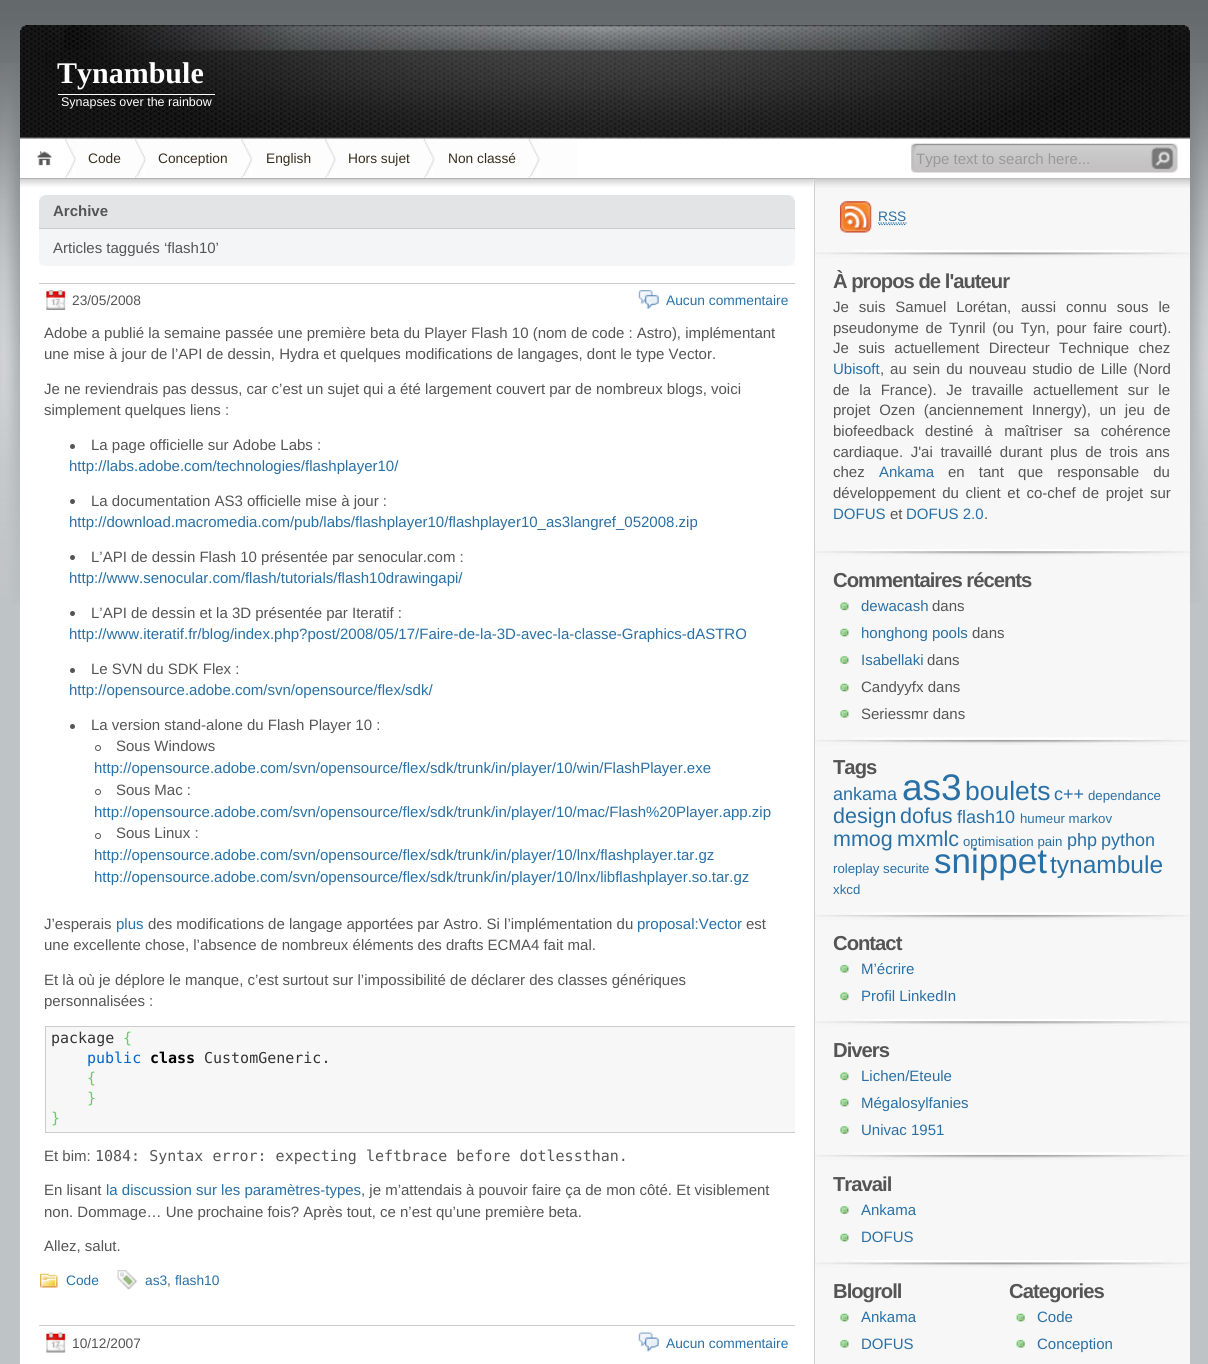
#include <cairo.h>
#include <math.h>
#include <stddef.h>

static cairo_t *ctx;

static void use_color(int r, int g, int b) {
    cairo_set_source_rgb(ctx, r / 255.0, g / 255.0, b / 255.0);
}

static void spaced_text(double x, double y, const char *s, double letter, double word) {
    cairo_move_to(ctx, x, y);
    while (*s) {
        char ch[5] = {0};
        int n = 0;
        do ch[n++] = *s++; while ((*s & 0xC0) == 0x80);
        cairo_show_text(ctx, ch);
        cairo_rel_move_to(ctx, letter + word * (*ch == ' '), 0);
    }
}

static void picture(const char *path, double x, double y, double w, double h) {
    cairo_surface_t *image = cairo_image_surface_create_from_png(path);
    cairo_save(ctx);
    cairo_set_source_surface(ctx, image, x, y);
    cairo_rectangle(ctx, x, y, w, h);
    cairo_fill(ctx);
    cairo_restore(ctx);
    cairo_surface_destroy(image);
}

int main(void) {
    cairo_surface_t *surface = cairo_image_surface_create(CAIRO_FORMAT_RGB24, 1208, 1364);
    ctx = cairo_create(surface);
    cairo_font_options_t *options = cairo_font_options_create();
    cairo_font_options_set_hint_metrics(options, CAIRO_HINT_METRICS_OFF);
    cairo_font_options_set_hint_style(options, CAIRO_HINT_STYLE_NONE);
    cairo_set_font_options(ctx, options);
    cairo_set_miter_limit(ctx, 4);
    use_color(190, 195, 198);
    cairo_paint(ctx);
    picture("img1.png", 0, 0, 1208, 138);
    picture("img2.png", 0, 63, 1208, 540);
    picture("img3.png", 20, 25, 1170, 113);
    use_color(166, 166, 166);
    cairo_rectangle(ctx, 20, 138, 1170, 1);
    cairo_fill(ctx);
    cairo_select_font_face(ctx, "Liberation Serif", CAIRO_FONT_SLANT_NORMAL, CAIRO_FONT_WEIGHT_BOLD);
    cairo_set_font_size(ctx, 30);
    use_color(255, 255, 255);
    cairo_move_to(ctx, 57, 83);
    cairo_show_text(ctx, "Tynambule");
    cairo_rectangle(ctx, 58, 94, 157, 1);
    cairo_fill(ctx);
    cairo_select_font_face(ctx, "Liberation Sans", CAIRO_FONT_SLANT_NORMAL, CAIRO_FONT_WEIGHT_NORMAL);
    cairo_set_font_size(ctx, 12.5);
    cairo_move_to(ctx, 61, 106);
    cairo_show_text(ctx, "Synapses over the rainbow");
    cairo_rectangle(ctx, 20, 139, 1170, 39);
    cairo_fill(ctx);
    use_color(166, 166, 166);
    cairo_rectangle(ctx, 20, 178, 1170, 1);
    cairo_fill(ctx);
    picture("img4.png", 20, 139, 54, 27);
    picture("img5.png", 65, 139, 82, 39);
    cairo_set_font_size(ctx, 13.75);
    use_color(56, 46, 31);
    cairo_move_to(ctx, 88, 163);
    cairo_show_text(ctx, "Code");
    picture("img6.png", 135, 139, 118, 39);
    cairo_move_to(ctx, 158, 163);
    cairo_show_text(ctx, "Conception");
    picture("img7.png", 241, 139, 96, 39);
    cairo_move_to(ctx, 266, 163);
    cairo_show_text(ctx, "English");
    picture("img8.png", 325, 139, 110, 39);
    cairo_move_to(ctx, 348, 163);
    cairo_show_text(ctx, "Hors sujet");
    picture("img9.png", 423, 139, 117, 39);
    cairo_move_to(ctx, 448, 163);
    cairo_show_text(ctx, "Non classé");
    picture("img10.png", 528, 139, 50, 39);
    picture("img11.png", 911, 143, 267, 30);
    cairo_set_font_size(ctx, 15);
    use_color(153, 153, 153);
    cairo_move_to(ctx, 916, 164);
    cairo_show_text(ctx, "Type text to search here...");
    picture("img12.png", 813, 178, 377, 1186);
    use_color(255, 255, 255);
    cairo_rectangle(ctx, 20, 179, 794, 1185);
    cairo_fill(ctx);
    picture("img13.png", 20, 178, 794, 9);
    use_color(227, 228, 230);
    cairo_rectangle(ctx, 39, 195, 756, 33);
    cairo_fill(ctx);
    picture("img14.png", 39, 195, 756, 5);
    use_color(204, 204, 204);
    cairo_rectangle(ctx, 39, 228, 756, 1);
    cairo_fill(ctx);
    cairo_select_font_face(ctx, "Liberation Sans", CAIRO_FONT_SLANT_NORMAL, CAIRO_FONT_WEIGHT_BOLD);
    use_color(85, 85, 85);
    cairo_move_to(ctx, 53, 216);
    cairo_show_text(ctx, "Archive");
    use_color(244, 245, 247);
    cairo_rectangle(ctx, 39, 229, 756, 37);
    cairo_fill(ctx);
    picture("img15.png", 39, 261, 756, 5);
    cairo_select_font_face(ctx, "Liberation Sans", CAIRO_FONT_SLANT_NORMAL, CAIRO_FONT_WEIGHT_NORMAL);
    use_color(85, 85, 85);
    cairo_move_to(ctx, 53, 253);
    cairo_show_text(ctx, "Articles taggués ‘flash10’");
    use_color(204, 204, 204);
    cairo_rectangle(ctx, 39, 283, 756, 1);
    cairo_fill(ctx);
    picture("img16.png", 46, 290, 20, 20);
    cairo_set_font_size(ctx, 13.75);
    use_color(85, 85, 85);
    cairo_move_to(ctx, 72, 305);
    cairo_show_text(ctx, "23/05/2008");
    picture("img17.png", 638, 290, 21, 19);
    use_color(41, 112, 166);
    cairo_move_to(ctx, 666, 305);
    cairo_show_text(ctx, "Aucun commentaire");
    cairo_set_font_size(ctx, 15);
    use_color(85, 85, 85);
    cairo_move_to(ctx, 44, 338);
    cairo_show_text(ctx, "Adobe a publié la semaine passée une première beta du Player Flash 10 (nom de code : Astro), implémentant");
    cairo_move_to(ctx, 44, 359);
    cairo_show_text(ctx, "une mise à jour de l’API de dessin, Hydra et quelques modifications de langages, dont le type Vector.");
    cairo_move_to(ctx, 44, 394);
    cairo_show_text(ctx, "Je ne reviendrais pas dessus, car c’est un sujet qui a été largement couvert par de nombreux blogs, voici");
    cairo_move_to(ctx, 44, 415);
    cairo_show_text(ctx, "simplement quelques liens :");
    cairo_new_path(ctx);
    cairo_arc(ctx, 72.5, 446.5, 2.5, 0, 2 * M_PI);
    cairo_fill(ctx);
    cairo_move_to(ctx, 91, 450);
    cairo_show_text(ctx, "La page officielle sur Adobe Labs :");
    use_color(41, 112, 166);
    cairo_move_to(ctx, 69, 471);
    cairo_show_text(ctx, "http://labs.adobe.com/technologies/flashplayer10/");
    use_color(85, 85, 85);
    cairo_new_path(ctx);
    cairo_arc(ctx, 72.5, 501.5, 2.5, 0, 2 * M_PI);
    cairo_fill(ctx);
    cairo_move_to(ctx, 91, 506);
    cairo_show_text(ctx, "La documentation AS3 officielle mise à jour :");
    use_color(41, 112, 166);
    cairo_move_to(ctx, 69, 527);
    cairo_show_text(ctx, "http://download.macromedia.com/pub/labs/flashplayer10/flashplayer10_as3langref_052008.zip");
    use_color(85, 85, 85);
    cairo_new_path(ctx);
    cairo_arc(ctx, 72.5, 557.5, 2.5, 0, 2 * M_PI);
    cairo_fill(ctx);
    cairo_move_to(ctx, 91, 562);
    cairo_show_text(ctx, "L’API de dessin Flash 10 présentée par senocular.com :");
    use_color(41, 112, 166);
    cairo_move_to(ctx, 69, 583);
    cairo_show_text(ctx, "http://www.senocular.com/flash/tutorials/flash10drawingapi/");
    use_color(85, 85, 85);
    cairo_new_path(ctx);
    cairo_arc(ctx, 72.5, 613.5, 2.5, 0, 2 * M_PI);
    cairo_fill(ctx);
    cairo_move_to(ctx, 91, 618);
    cairo_show_text(ctx, "L’API de dessin et la 3D présentée par Iteratif :");
    use_color(41, 112, 166);
    cairo_move_to(ctx, 69, 639);
    cairo_show_text(ctx, "http://www.iteratif.fr/blog/index.php?post/2008/05/17/Faire-de-la-3D-avec-la-classe-Graphics-dASTRO");
    use_color(85, 85, 85);
    cairo_new_path(ctx);
    cairo_arc(ctx, 72.5, 670.5, 2.5, 0, 2 * M_PI);
    cairo_fill(ctx);
    cairo_move_to(ctx, 91, 674);
    cairo_show_text(ctx, "Le SVN du SDK Flex :");
    use_color(41, 112, 166);
    cairo_move_to(ctx, 69, 695);
    cairo_show_text(ctx, "http://opensource.adobe.com/svn/opensource/flex/sdk/");
    use_color(85, 85, 85);
    cairo_new_path(ctx);
    cairo_arc(ctx, 72.5, 726.5, 2.5, 0, 2 * M_PI);
    cairo_fill(ctx);
    cairo_move_to(ctx, 91, 730);
    cairo_show_text(ctx, "La version stand-alone du Flash Player 10 :");
    cairo_new_path(ctx);
    cairo_arc(ctx, 98, 748, 2.5, 0, 2 * M_PI);
    cairo_set_line_width(ctx, 1);
    cairo_stroke(ctx);
    cairo_move_to(ctx, 116, 751);
    cairo_show_text(ctx, "Sous Windows");
    use_color(41, 112, 166);
    cairo_move_to(ctx, 94, 773);
    cairo_show_text(ctx, "http://opensource.adobe.com/svn/opensource/flex/sdk/trunk/in/player/10/win/FlashPlayer.exe");
    cairo_new_path(ctx);
    cairo_arc(ctx, 98, 792, 2.5, 0, 2 * M_PI);
    use_color(85, 85, 85);
    cairo_stroke(ctx);
    cairo_move_to(ctx, 116, 795);
    cairo_show_text(ctx, "Sous Mac :");
    use_color(41, 112, 166);
    cairo_move_to(ctx, 94, 817);
    cairo_show_text(ctx, "http://opensource.adobe.com/svn/opensource/flex/sdk/trunk/in/player/10/mac/Flash%20Player.app.zip");
    cairo_new_path(ctx);
    cairo_arc(ctx, 98, 836, 2.5, 0, 2 * M_PI);
    use_color(85, 85, 85);
    cairo_stroke(ctx);
    cairo_move_to(ctx, 116, 838);
    cairo_show_text(ctx, "Sous Linux :");
    use_color(41, 112, 166);
    cairo_move_to(ctx, 94, 860);
    cairo_show_text(ctx, "http://opensource.adobe.com/svn/opensource/flex/sdk/trunk/in/player/10/lnx/flashplayer.tar.gz");
    cairo_move_to(ctx, 94, 882);
    cairo_show_text(ctx, "http://opensource.adobe.com/svn/opensource/flex/sdk/trunk/in/player/10/lnx/libflashplayer.so.tar.gz");
    use_color(85, 85, 85);
    cairo_move_to(ctx, 44, 929);
    cairo_show_text(ctx, "J’esperais");
    use_color(41, 112, 166);
    cairo_move_to(ctx, 116, 929);
    cairo_show_text(ctx, "plus");
    use_color(85, 85, 85);
    cairo_move_to(ctx, 148, 929);
    cairo_show_text(ctx, "des modifications de langage apportées par Astro. Si l’implémentation du");
    use_color(41, 112, 166);
    cairo_move_to(ctx, 637, 929);
    cairo_show_text(ctx, "proposal:Vector");
    use_color(85, 85, 85);
    cairo_move_to(ctx, 746, 929);
    cairo_show_text(ctx, "est");
    cairo_move_to(ctx, 44, 950);
    cairo_show_text(ctx, "une excellente chose, l’absence de nombreux éléments des drafts ECMA4 fait mal.");
    cairo_move_to(ctx, 44, 985);
    cairo_show_text(ctx, "Et là où je déplore le manque, c’est surtout sur l’impossibilité de déclarer des classes génériques");
    cairo_move_to(ctx, 44, 1006);
    cairo_show_text(ctx, "personnalisées :");
    use_color(247, 247, 247);
    cairo_rectangle(ctx, 46, 1027, 749, 105);
    cairo_fill(ctx);
    cairo_save(ctx);
    cairo_rectangle(ctx, 39, 316, 756, 954);
    cairo_clip(ctx);
    cairo_rectangle(ctx, 45.5, 1026.5, 752, 106);
    use_color(204, 204, 204);
    cairo_stroke(ctx);
    cairo_restore(ctx);
    cairo_select_font_face(ctx, "DejaVu Sans Mono", CAIRO_FONT_SLANT_NORMAL, CAIRO_FONT_WEIGHT_NORMAL);
    use_color(51, 51, 51);
    cairo_move_to(ctx, 51, 1043);
    cairo_show_text(ctx, "package");
    use_color(102, 204, 102);
    cairo_move_to(ctx, 123, 1043);
    cairo_show_text(ctx, "{");
    use_color(0, 102, 204);
    cairo_move_to(ctx, 87, 1063);
    cairo_show_text(ctx, "public");
    cairo_select_font_face(ctx, "DejaVu Sans Mono", CAIRO_FONT_SLANT_NORMAL, CAIRO_FONT_WEIGHT_BOLD);
    use_color(0, 0, 0);
    cairo_move_to(ctx, 150, 1063);
    cairo_show_text(ctx, "class");
    cairo_select_font_face(ctx, "DejaVu Sans Mono", CAIRO_FONT_SLANT_NORMAL, CAIRO_FONT_WEIGHT_NORMAL);
    use_color(51, 51, 51);
    cairo_move_to(ctx, 204, 1063);
    cairo_show_text(ctx, "CustomGeneric.");
    use_color(102, 204, 102);
    cairo_move_to(ctx, 87, 1083);
    cairo_show_text(ctx, "{");
    cairo_move_to(ctx, 87, 1103);
    cairo_show_text(ctx, "}");
    cairo_move_to(ctx, 51, 1123);
    cairo_show_text(ctx, "}");
    cairo_select_font_face(ctx, "Liberation Sans", CAIRO_FONT_SLANT_NORMAL, CAIRO_FONT_WEIGHT_NORMAL);
    use_color(85, 85, 85);
    cairo_move_to(ctx, 44, 1161);
    cairo_show_text(ctx, "Et bim:");
    cairo_select_font_face(ctx, "DejaVu Sans Mono", CAIRO_FONT_SLANT_NORMAL, CAIRO_FONT_WEIGHT_NORMAL);
    cairo_move_to(ctx, 95, 1161);
    cairo_show_text(ctx, "1084: Syntax error: expecting leftbrace before dotlessthan.");
    cairo_select_font_face(ctx, "Liberation Sans", CAIRO_FONT_SLANT_NORMAL, CAIRO_FONT_WEIGHT_NORMAL);
    cairo_move_to(ctx, 44, 1195);
    cairo_show_text(ctx, "En lisant");
    use_color(41, 112, 166);
    cairo_move_to(ctx, 106, 1195);
    cairo_show_text(ctx, "la discussion sur les paramètres-types");
    use_color(85, 85, 85);
    cairo_move_to(ctx, 361, 1195);
    cairo_show_text(ctx, ", je m’attendais à pouvoir faire ça de mon côté. Et visiblement");
    cairo_move_to(ctx, 44, 1217);
    cairo_show_text(ctx, "non. Dommage… Une prochaine fois? Après tout, ce n’est qu’une première beta.");
    cairo_move_to(ctx, 44, 1251);
    cairo_show_text(ctx, "Allez, salut.");
    picture("img18.png", 39, 1273, 19, 15);
    cairo_set_font_size(ctx, 13.75);
    use_color(41, 112, 166);
    cairo_move_to(ctx, 66, 1285);
    cairo_show_text(ctx, "Code");
    picture("img19.png", 117, 1270, 21, 20);
    cairo_move_to(ctx, 145, 1285);
    cairo_show_text(ctx, "as3");
    use_color(85, 85, 85);
    cairo_move_to(ctx, 167, 1285);
    cairo_show_text(ctx, ",");
    use_color(41, 112, 166);
    cairo_move_to(ctx, 175, 1285);
    cairo_show_text(ctx, "flash10");
    use_color(204, 204, 204);
    cairo_rectangle(ctx, 39, 1325, 756, 1);
    cairo_fill(ctx);
    picture("img20.png", 46, 1332, 20, 21);
    use_color(85, 85, 85);
    cairo_move_to(ctx, 72, 1348);
    cairo_show_text(ctx, "10/12/2007");
    picture("img21.png", 638, 1332, 21, 20);
    use_color(41, 112, 166);
    cairo_move_to(ctx, 666, 1348);
    cairo_show_text(ctx, "Aucun commentaire");
    use_color(247, 247, 247);
    cairo_rectangle(ctx, 815, 188, 1, 1176);
    cairo_fill(ctx);
    picture("img22.png", 815, 178, 375, 10);
    picture("img23.png", 815, 250, 375, 8);
    picture("img24.png", 840, 201, 32, 32);
    use_color(41, 112, 166);
    cairo_move_to(ctx, 878, 221);
    cairo_show_text(ctx, "RSS");
    cairo_new_path(ctx);
    cairo_move_to(ctx, 879, 224.5);
    cairo_line_to(ctx, 906, 224.5);
    cairo_move_to(ctx, 878, 223);
    cairo_line_to(ctx, 906.5, 223);
    cairo_set_line_width(ctx, 1.2);
    cairo_set_dash(ctx, (double[]){1.25, 1.25}, 2, 0);
    cairo_stroke(ctx);
    picture("img25.png", 815, 549, 375, 7);
    cairo_select_font_face(ctx, "Liberation Sans", CAIRO_FONT_SLANT_NORMAL, CAIRO_FONT_WEIGHT_BOLD);
    cairo_set_font_size(ctx, 20.25);
    use_color(85, 85, 85);
    spaced_text(833, 288, "À propos de l'auteur", -1, 0);
    cairo_select_font_face(ctx, "Liberation Sans", CAIRO_FONT_SLANT_NORMAL, CAIRO_FONT_WEIGHT_NORMAL);
    cairo_set_font_size(ctx, 15);
    spaced_text(833, 312, "Je suis Samuel Lorétan, aussi connu sous le", 0, 5.75);
    spaced_text(833, 333, "pseudonyme de Tynril (ou Tyn, pour faire court).", 0, 2.5);
    spaced_text(833, 353, "Je suis actuellement Directeur Technique chez", 0, 5.25);
    use_color(41, 112, 166);
    cairo_move_to(ctx, 833, 374);
    cairo_show_text(ctx, "Ubisoft");
    use_color(85, 85, 85);
    spaced_text(880, 374, ", au sein du nouveau studio de Lille (Nord", 0, 1.75);
    spaced_text(833, 395, "de la France). Je travaille actuellement sur le", 0, 5.5);
    spaced_text(833, 415, "projet Ozen (anciennement Innergy), un jeu de", 0, 4.5);
    spaced_text(833, 436, "biofeedback destiné à maîtriser sa cohérence", 0, 7);
    spaced_text(833, 457, "cardiaque. J'ai travaillé durant plus de trois ans", 0, 3.5);
    cairo_move_to(ctx, 833, 477);
    cairo_show_text(ctx, "chez");
    use_color(41, 112, 166);
    cairo_move_to(ctx, 879, 477);
    cairo_show_text(ctx, "Ankama");
    use_color(85, 85, 85);
    spaced_text(948, 477, "en tant que responsable du", 0, 10);
    spaced_text(833, 498, "développement du client et co-chef de projet sur", 0, 2.5);
    use_color(41, 112, 166);
    cairo_move_to(ctx, 833, 519);
    cairo_show_text(ctx, "DOFUS");
    use_color(85, 85, 85);
    cairo_move_to(ctx, 890, 519);
    cairo_show_text(ctx, "et");
    use_color(41, 112, 166);
    cairo_move_to(ctx, 906, 519);
    cairo_show_text(ctx, "DOFUS 2.0");
    use_color(85, 85, 85);
    cairo_move_to(ctx, 984, 519);
    cairo_show_text(ctx, ".");
    picture("img26.png", 815, 737, 375, 8);
    cairo_select_font_face(ctx, "Liberation Sans", CAIRO_FONT_SLANT_NORMAL, CAIRO_FONT_WEIGHT_BOLD);
    cairo_set_font_size(ctx, 20.25);
    spaced_text(833, 587, "Commentaires récents", -1, 0);
    picture("img27.png", 840, 602, 9, 9);
    cairo_select_font_face(ctx, "Liberation Sans", CAIRO_FONT_SLANT_NORMAL, CAIRO_FONT_WEIGHT_NORMAL);
    cairo_set_font_size(ctx, 15);
    use_color(41, 112, 166);
    cairo_move_to(ctx, 861, 611);
    cairo_show_text(ctx, "dewacash");
    use_color(85, 85, 85);
    cairo_move_to(ctx, 932, 611);
    cairo_show_text(ctx, "dans");
    picture("img28.png", 840, 628, 9, 9);
    use_color(41, 112, 166);
    cairo_move_to(ctx, 861, 638);
    cairo_show_text(ctx, "honghong pools");
    use_color(85, 85, 85);
    cairo_move_to(ctx, 972, 638);
    cairo_show_text(ctx, "dans");
    picture("img29.png", 840, 656, 9, 8);
    use_color(41, 112, 166);
    cairo_move_to(ctx, 861, 665);
    cairo_show_text(ctx, "Isabellaki");
    use_color(85, 85, 85);
    cairo_move_to(ctx, 927, 665);
    cairo_show_text(ctx, "dans");
    picture("img28.png", 840, 683, 9, 9);
    cairo_move_to(ctx, 861, 692);
    cairo_show_text(ctx, "Candyyfx dans");
    picture("img30.png", 840, 709, 9, 9);
    cairo_move_to(ctx, 861, 719);
    cairo_show_text(ctx, "Seriessmr dans");
    picture("img26.png", 815, 912, 375, 8);
    cairo_select_font_face(ctx, "Liberation Sans", CAIRO_FONT_SLANT_NORMAL, CAIRO_FONT_WEIGHT_BOLD);
    cairo_set_font_size(ctx, 20.25);
    spaced_text(833, 774, "Tags", -1, 0);
    cairo_select_font_face(ctx, "Liberation Sans", CAIRO_FONT_SLANT_NORMAL, CAIRO_FONT_WEIGHT_NORMAL);
    cairo_set_font_size(ctx, 18);
    use_color(41, 112, 166);
    cairo_move_to(ctx, 833, 800);
    cairo_show_text(ctx, "ankama");
    cairo_set_font_size(ctx, 37);
    cairo_move_to(ctx, 902, 800);
    cairo_show_text(ctx, "as3");
    cairo_set_font_size(ctx, 26.5);
    cairo_move_to(ctx, 965, 800);
    cairo_show_text(ctx, "boulets");
    cairo_set_font_size(ctx, 18);
    cairo_move_to(ctx, 1054, 800);
    cairo_show_text(ctx, "c++");
    cairo_set_font_size(ctx, 13.25);
    cairo_move_to(ctx, 1088, 800);
    cairo_show_text(ctx, "dependance");
    cairo_set_font_size(ctx, 21.5);
    cairo_move_to(ctx, 833, 823);
    cairo_show_text(ctx, "design");
    cairo_move_to(ctx, 900, 823);
    cairo_show_text(ctx, "dofus");
    cairo_set_font_size(ctx, 18);
    cairo_move_to(ctx, 957, 823);
    cairo_show_text(ctx, "flash10");
    cairo_set_font_size(ctx, 13.25);
    cairo_move_to(ctx, 1020, 823);
    cairo_show_text(ctx, "humeur markov");
    cairo_set_font_size(ctx, 21.5);
    cairo_move_to(ctx, 833, 846);
    cairo_show_text(ctx, "mmog");
    cairo_move_to(ctx, 897, 846);
    cairo_show_text(ctx, "mxmlc");
    cairo_set_font_size(ctx, 13.25);
    cairo_move_to(ctx, 963, 846);
    cairo_show_text(ctx, "optimisation pain");
    cairo_set_font_size(ctx, 18);
    cairo_move_to(ctx, 1067, 846);
    cairo_show_text(ctx, "php");
    cairo_move_to(ctx, 1101, 846);
    cairo_show_text(ctx, "python");
    cairo_set_font_size(ctx, 13.25);
    cairo_move_to(ctx, 833, 873);
    cairo_show_text(ctx, "roleplay securite");
    cairo_set_font_size(ctx, 35);
    cairo_move_to(ctx, 934, 873);
    cairo_show_text(ctx, "snippet");
    cairo_set_font_size(ctx, 24.5);
    cairo_move_to(ctx, 1050, 873);
    cairo_show_text(ctx, "tynambule");
    cairo_set_font_size(ctx, 13.25);
    cairo_move_to(ctx, 833, 894);
    cairo_show_text(ctx, "xkcd");
    picture("img25.png", 815, 1019, 375, 7);
    cairo_select_font_face(ctx, "Liberation Sans", CAIRO_FONT_SLANT_NORMAL, CAIRO_FONT_WEIGHT_BOLD);
    cairo_set_font_size(ctx, 20.25);
    use_color(85, 85, 85);
    spaced_text(833, 950, "Contact", -1, 0);
    picture("img30.png", 840, 964, 9, 9);
    cairo_select_font_face(ctx, "Liberation Sans", CAIRO_FONT_SLANT_NORMAL, CAIRO_FONT_WEIGHT_NORMAL);
    cairo_set_font_size(ctx, 15);
    use_color(41, 112, 166);
    cairo_move_to(ctx, 861, 974);
    cairo_show_text(ctx, "M’écrire");
    picture("img27.png", 840, 992, 9, 9);
    cairo_move_to(ctx, 861, 1001);
    cairo_show_text(ctx, "Profil LinkedIn");
    picture("img26.png", 815, 1152, 375, 8);
    cairo_select_font_face(ctx, "Liberation Sans", CAIRO_FONT_SLANT_NORMAL, CAIRO_FONT_WEIGHT_BOLD);
    cairo_set_font_size(ctx, 20.25);
    use_color(85, 85, 85);
    spaced_text(833, 1057, "Divers", -1, 0);
    picture("img27.png", 840, 1072, 9, 9);
    cairo_select_font_face(ctx, "Liberation Sans", CAIRO_FONT_SLANT_NORMAL, CAIRO_FONT_WEIGHT_NORMAL);
    cairo_set_font_size(ctx, 15);
    use_color(41, 112, 166);
    cairo_move_to(ctx, 861, 1081);
    cairo_show_text(ctx, "Lichen/Eteule");
    picture("img28.png", 840, 1098, 9, 9);
    cairo_move_to(ctx, 861, 1108);
    cairo_show_text(ctx, "Mégalosylfanies");
    picture("img29.png", 840, 1126, 9, 8);
    cairo_move_to(ctx, 861, 1135);
    cairo_show_text(ctx, "Univac 1951");
    picture("img23.png", 815, 1260, 375, 8);
    cairo_select_font_face(ctx, "Liberation Sans", CAIRO_FONT_SLANT_NORMAL, CAIRO_FONT_WEIGHT_BOLD);
    cairo_set_font_size(ctx, 20.25);
    use_color(85, 85, 85);
    spaced_text(833, 1191, "Travail", -1, 0);
    picture("img29.png", 840, 1206, 9, 8);
    cairo_select_font_face(ctx, "Liberation Sans", CAIRO_FONT_SLANT_NORMAL, CAIRO_FONT_WEIGHT_NORMAL);
    cairo_set_font_size(ctx, 15);
    use_color(41, 112, 166);
    cairo_move_to(ctx, 861, 1215);
    cairo_show_text(ctx, "Ankama");
    picture("img28.png", 840, 1233, 9, 9);
    cairo_move_to(ctx, 861, 1242);
    cairo_show_text(ctx, "DOFUS");
    cairo_select_font_face(ctx, "Liberation Sans", CAIRO_FONT_SLANT_NORMAL, CAIRO_FONT_WEIGHT_BOLD);
    cairo_set_font_size(ctx, 20.25);
    use_color(85, 85, 85);
    spaced_text(833, 1298, "Blogroll", -1, 0);
    picture("img28.png", 840, 1313, 9, 9);
    cairo_select_font_face(ctx, "Liberation Sans", CAIRO_FONT_SLANT_NORMAL, CAIRO_FONT_WEIGHT_NORMAL);
    cairo_set_font_size(ctx, 15);
    use_color(41, 112, 166);
    cairo_move_to(ctx, 861, 1322);
    cairo_show_text(ctx, "Ankama");
    picture("img30.png", 840, 1339, 9, 9);
    cairo_move_to(ctx, 861, 1349);
    cairo_show_text(ctx, "DOFUS");
    cairo_select_font_face(ctx, "Liberation Sans", CAIRO_FONT_SLANT_NORMAL, CAIRO_FONT_WEIGHT_BOLD);
    cairo_set_font_size(ctx, 20.25);
    use_color(85, 85, 85);
    spaced_text(1009, 1298, "Categories", -1, 0);
    picture("img31.png", 1016, 1313, 9, 9);
    cairo_select_font_face(ctx, "Liberation Sans", CAIRO_FONT_SLANT_NORMAL, CAIRO_FONT_WEIGHT_NORMAL);
    cairo_set_font_size(ctx, 15);
    use_color(41, 112, 166);
    cairo_move_to(ctx, 1037, 1322);
    cairo_show_text(ctx, "Code");
    picture("img32.png", 1016, 1339, 9, 9);
    cairo_move_to(ctx, 1037, 1349);
    cairo_show_text(ctx, "Conception");
    cairo_surface_write_to_png(surface, "result.png");
    cairo_font_options_destroy(options);
    cairo_destroy(ctx);
    cairo_surface_destroy(surface);
    return 0;
}
